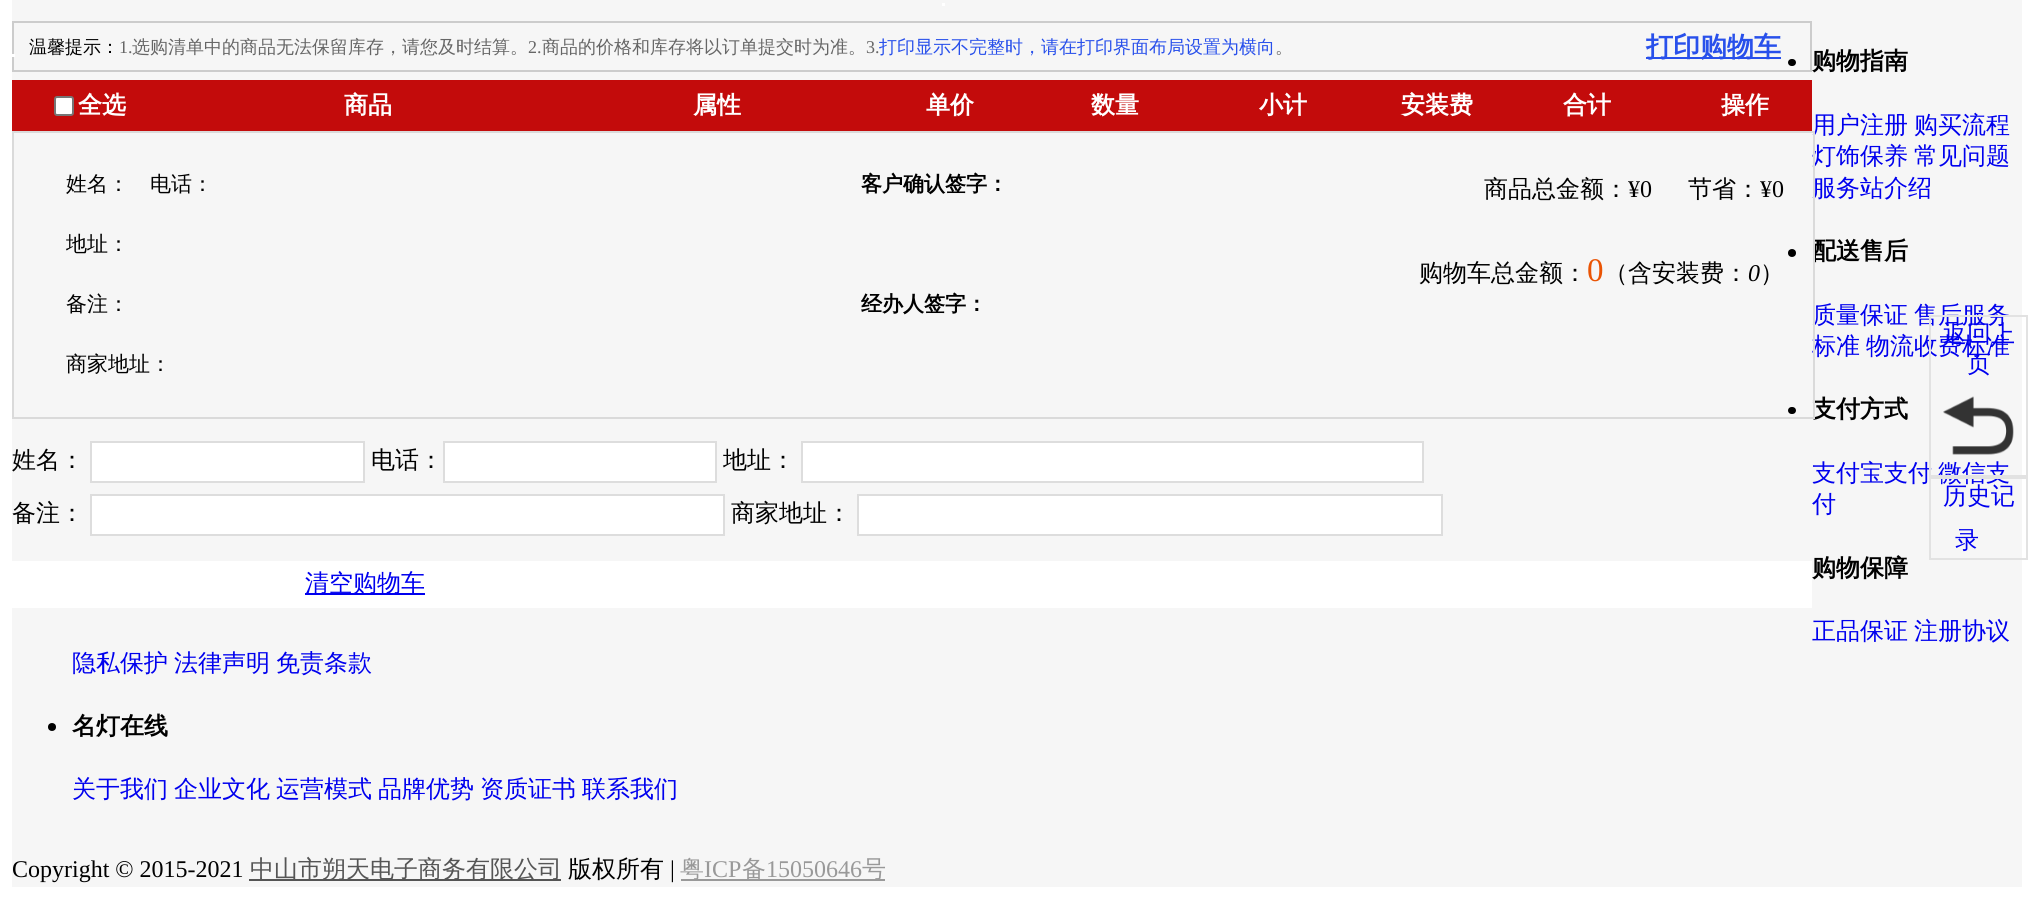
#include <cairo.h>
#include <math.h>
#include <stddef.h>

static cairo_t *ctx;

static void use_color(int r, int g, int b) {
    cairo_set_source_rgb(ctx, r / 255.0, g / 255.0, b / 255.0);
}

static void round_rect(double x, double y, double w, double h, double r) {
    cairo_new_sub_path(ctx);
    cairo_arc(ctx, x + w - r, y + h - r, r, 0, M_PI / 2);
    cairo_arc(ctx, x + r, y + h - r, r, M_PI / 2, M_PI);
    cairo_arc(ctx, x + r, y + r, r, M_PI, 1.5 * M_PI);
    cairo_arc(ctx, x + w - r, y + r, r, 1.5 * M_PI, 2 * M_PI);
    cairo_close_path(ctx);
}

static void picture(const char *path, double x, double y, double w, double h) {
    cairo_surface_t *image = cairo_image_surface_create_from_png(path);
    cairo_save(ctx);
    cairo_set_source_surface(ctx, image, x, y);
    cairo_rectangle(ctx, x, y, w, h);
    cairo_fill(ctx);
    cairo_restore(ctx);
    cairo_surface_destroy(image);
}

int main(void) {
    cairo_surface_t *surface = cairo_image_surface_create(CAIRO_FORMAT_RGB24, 2033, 898);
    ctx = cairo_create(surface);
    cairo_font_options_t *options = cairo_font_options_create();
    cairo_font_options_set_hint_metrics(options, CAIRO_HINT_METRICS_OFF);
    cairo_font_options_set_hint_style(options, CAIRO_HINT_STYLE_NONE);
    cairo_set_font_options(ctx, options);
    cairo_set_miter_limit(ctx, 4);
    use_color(255, 255, 255);
    cairo_paint(ctx);
    use_color(246, 246, 246);
    cairo_rectangle(ctx, 12, 0, 2010, 887);
    cairo_fill(ctx);
    use_color(255, 255, 255);
    cairo_rectangle(ctx, 942, 3, 3, 3);
    cairo_fill(ctx);
    use_color(0, 0, 0);
    round_rect(1788, 59, 8, 7, 3.5);
    cairo_fill(ctx);
    cairo_rectangle(ctx, 13, 22, 1798, 49);
    use_color(204, 204, 204);
    cairo_stroke(ctx);
    use_color(255, 255, 255);
    cairo_rectangle(ctx, 12, 54, 3, 3);
    cairo_fill(ctx);
    cairo_select_font_face(ctx, "WenQuanYi Zen Hei Medium", CAIRO_FONT_SLANT_NORMAL, CAIRO_FONT_WEIGHT_NORMAL);
    cairo_set_font_size(ctx, 18);
    use_color(0, 0, 0);
    cairo_move_to(ctx, 29, 53);
    cairo_show_text(ctx, "温馨提示：");
    cairo_select_font_face(ctx, "Liberation Serif", CAIRO_FONT_SLANT_NORMAL, CAIRO_FONT_WEIGHT_NORMAL);
    use_color(102, 102, 102);
    cairo_move_to(ctx, 119, 53);
    cairo_show_text(ctx, "1.");
    cairo_select_font_face(ctx, "WenQuanYi Zen Hei Medium", CAIRO_FONT_SLANT_NORMAL, CAIRO_FONT_WEIGHT_NORMAL);
    cairo_move_to(ctx, 132, 53);
    cairo_show_text(ctx, "选购清单中的商品无法保留库存，请您及时结算。");
    cairo_select_font_face(ctx, "Liberation Serif", CAIRO_FONT_SLANT_NORMAL, CAIRO_FONT_WEIGHT_NORMAL);
    cairo_move_to(ctx, 528, 53);
    cairo_show_text(ctx, "2.");
    cairo_select_font_face(ctx, "WenQuanYi Zen Hei Medium", CAIRO_FONT_SLANT_NORMAL, CAIRO_FONT_WEIGHT_NORMAL);
    cairo_move_to(ctx, 542, 53);
    cairo_show_text(ctx, "商品的价格和库存将以订单提交时为准。");
    cairo_select_font_face(ctx, "Liberation Serif", CAIRO_FONT_SLANT_NORMAL, CAIRO_FONT_WEIGHT_NORMAL);
    cairo_move_to(ctx, 866, 53);
    cairo_show_text(ctx, "3.");
    cairo_select_font_face(ctx, "WenQuanYi Zen Hei Medium", CAIRO_FONT_SLANT_NORMAL, CAIRO_FONT_WEIGHT_NORMAL);
    use_color(40, 80, 235);
    cairo_move_to(ctx, 879, 53);
    cairo_show_text(ctx, "打印显示不完整时，请在打印界面布局设置为横向");
    use_color(102, 102, 102);
    cairo_move_to(ctx, 1275, 53);
    cairo_show_text(ctx, "。");
    use_color(40, 80, 235);
    cairo_rectangle(ctx, 1646, 57, 135, 2);
    cairo_fill(ctx);
    cairo_select_font_face(ctx, "WenQuanYi Zen Hei", CAIRO_FONT_SLANT_NORMAL, CAIRO_FONT_WEIGHT_BOLD);
    cairo_set_font_size(ctx, 27);
    cairo_move_to(ctx, 1646, 56);
    cairo_show_text(ctx, "打印购物车");
    use_color(195, 11, 11);
    cairo_rectangle(ctx, 12, 80, 1800, 51);
    cairo_fill(ctx);
    use_color(255, 255, 255);
    round_rect(55, 97, 18, 18, 2);
    cairo_fill_preserve(ctx);
    use_color(118, 118, 118);
    cairo_stroke(ctx);
    cairo_set_font_size(ctx, 24);
    use_color(255, 255, 255);
    cairo_move_to(ctx, 78, 113);
    cairo_show_text(ctx, "全选");
    cairo_move_to(ctx, 344, 113);
    cairo_show_text(ctx, "商品");
    cairo_move_to(ctx, 693, 113);
    cairo_show_text(ctx, "属性");
    cairo_move_to(ctx, 926, 113);
    cairo_show_text(ctx, "单价");
    cairo_move_to(ctx, 1091, 113);
    cairo_show_text(ctx, "数量");
    cairo_move_to(ctx, 1259, 113);
    cairo_show_text(ctx, "小计");
    cairo_move_to(ctx, 1401, 113);
    cairo_show_text(ctx, "安装费");
    cairo_move_to(ctx, 1563, 113);
    cairo_show_text(ctx, "合计");
    cairo_move_to(ctx, 1721, 113);
    cairo_show_text(ctx, "操作");
    cairo_select_font_face(ctx, "WenQuanYi Zen Hei Medium", CAIRO_FONT_SLANT_NORMAL, CAIRO_FONT_WEIGHT_NORMAL);
    use_color(0, 0, 238);
    cairo_move_to(ctx, 1812, 133);
    cairo_show_text(ctx, "用户注册");
    cairo_move_to(ctx, 1812, 164);
    cairo_show_text(ctx, "灯饰保养");
    cairo_move_to(ctx, 1812, 196);
    cairo_show_text(ctx, "服务站介绍");
    use_color(0, 0, 0);
    cairo_new_path(ctx);
    cairo_arc(ctx, 1792, 253, 4, 0, 2 * M_PI);
    cairo_fill(ctx);
    cairo_select_font_face(ctx, "WenQuanYi Zen Hei", CAIRO_FONT_SLANT_NORMAL, CAIRO_FONT_WEIGHT_BOLD);
    cairo_move_to(ctx, 1812, 259);
    cairo_show_text(ctx, "配送售后");
    cairo_select_font_face(ctx, "WenQuanYi Zen Hei Medium", CAIRO_FONT_SLANT_NORMAL, CAIRO_FONT_WEIGHT_NORMAL);
    use_color(0, 0, 238);
    cairo_move_to(ctx, 1812, 323);
    cairo_show_text(ctx, "质量保证");
    cairo_move_to(ctx, 1812, 354);
    cairo_show_text(ctx, "标准");
    use_color(0, 0, 0);
    round_rect(1788, 407, 8, 7, 3.5);
    cairo_fill(ctx);
    cairo_select_font_face(ctx, "WenQuanYi Zen Hei", CAIRO_FONT_SLANT_NORMAL, CAIRO_FONT_WEIGHT_BOLD);
    cairo_move_to(ctx, 1812, 417);
    cairo_show_text(ctx, "支付方式");
    cairo_rectangle(ctx, 13, 132, 1801, 286);
    use_color(218, 218, 218);
    cairo_stroke(ctx);
    cairo_select_font_face(ctx, "WenQuanYi Zen Hei Medium", CAIRO_FONT_SLANT_NORMAL, CAIRO_FONT_WEIGHT_NORMAL);
    cairo_set_font_size(ctx, 21);
    use_color(0, 0, 0);
    cairo_move_to(ctx, 66, 191);
    cairo_show_text(ctx, "姓名：");
    cairo_move_to(ctx, 150, 191);
    cairo_show_text(ctx, "电话：");
    cairo_move_to(ctx, 66, 251);
    cairo_show_text(ctx, "地址：");
    cairo_move_to(ctx, 66, 311);
    cairo_show_text(ctx, "备注：");
    cairo_move_to(ctx, 66, 371);
    cairo_show_text(ctx, "商家地址：");
    cairo_select_font_face(ctx, "WenQuanYi Zen Hei", CAIRO_FONT_SLANT_NORMAL, CAIRO_FONT_WEIGHT_BOLD);
    cairo_move_to(ctx, 861, 191);
    cairo_show_text(ctx, "客户确认签字：");
    cairo_move_to(ctx, 861, 311);
    cairo_show_text(ctx, "经办人签字：");
    cairo_select_font_face(ctx, "WenQuanYi Zen Hei Medium", CAIRO_FONT_SLANT_NORMAL, CAIRO_FONT_WEIGHT_NORMAL);
    cairo_set_font_size(ctx, 24);
    cairo_move_to(ctx, 1484, 197);
    cairo_show_text(ctx, "商品总金额：");
    cairo_select_font_face(ctx, "Liberation Serif", CAIRO_FONT_SLANT_NORMAL, CAIRO_FONT_WEIGHT_NORMAL);
    cairo_move_to(ctx, 1628, 197);
    cairo_show_text(ctx, "¥0");
    cairo_select_font_face(ctx, "WenQuanYi Zen Hei Medium", CAIRO_FONT_SLANT_NORMAL, CAIRO_FONT_WEIGHT_NORMAL);
    cairo_move_to(ctx, 1688, 197);
    cairo_show_text(ctx, "节省：");
    cairo_select_font_face(ctx, "Liberation Serif", CAIRO_FONT_SLANT_NORMAL, CAIRO_FONT_WEIGHT_NORMAL);
    cairo_move_to(ctx, 1760, 197);
    cairo_show_text(ctx, "¥0");
    cairo_select_font_face(ctx, "WenQuanYi Zen Hei Medium", CAIRO_FONT_SLANT_NORMAL, CAIRO_FONT_WEIGHT_NORMAL);
    cairo_move_to(ctx, 1419, 281);
    cairo_show_text(ctx, "购物车总金额：");
    cairo_select_font_face(ctx, "Liberation Serif", CAIRO_FONT_SLANT_NORMAL, CAIRO_FONT_WEIGHT_NORMAL);
    cairo_set_font_size(ctx, 33);
    use_color(234, 84, 4);
    cairo_move_to(ctx, 1587, 281);
    cairo_show_text(ctx, "0");
    cairo_select_font_face(ctx, "WenQuanYi Zen Hei Medium", CAIRO_FONT_SLANT_NORMAL, CAIRO_FONT_WEIGHT_NORMAL);
    cairo_set_font_size(ctx, 24);
    use_color(0, 0, 0);
    cairo_move_to(ctx, 1604, 281);
    cairo_show_text(ctx, "（含安装费：");
    cairo_select_font_face(ctx, "Liberation Serif", CAIRO_FONT_SLANT_ITALIC, CAIRO_FONT_WEIGHT_NORMAL);
    cairo_move_to(ctx, 1748, 281);
    cairo_show_text(ctx, "0");
    cairo_select_font_face(ctx, "WenQuanYi Zen Hei Medium", CAIRO_FONT_SLANT_NORMAL, CAIRO_FONT_WEIGHT_NORMAL);
    cairo_move_to(ctx, 1760, 281);
    cairo_show_text(ctx, "）");
    cairo_move_to(ctx, 12, 468);
    cairo_show_text(ctx, "姓名：");
    use_color(255, 255, 255);
    cairo_rectangle(ctx, 91, 442, 273, 40);
    cairo_fill_preserve(ctx);
    use_color(221, 221, 221);
    cairo_stroke(ctx);
    use_color(0, 0, 0);
    cairo_move_to(ctx, 371, 468);
    cairo_show_text(ctx, "电话：");
    use_color(255, 255, 255);
    cairo_rectangle(ctx, 444, 442, 272, 40);
    cairo_fill_preserve(ctx);
    use_color(221, 221, 221);
    cairo_stroke(ctx);
    use_color(0, 0, 0);
    cairo_move_to(ctx, 723, 468);
    cairo_show_text(ctx, "地址：");
    use_color(255, 255, 255);
    cairo_rectangle(ctx, 802, 442, 621, 40);
    cairo_fill_preserve(ctx);
    use_color(221, 221, 221);
    cairo_stroke(ctx);
    use_color(0, 0, 0);
    cairo_move_to(ctx, 12, 521);
    cairo_show_text(ctx, "备注：");
    use_color(255, 255, 255);
    cairo_rectangle(ctx, 91, 495, 633, 40);
    cairo_fill_preserve(ctx);
    use_color(221, 221, 221);
    cairo_stroke(ctx);
    use_color(0, 0, 0);
    cairo_move_to(ctx, 731, 521);
    cairo_show_text(ctx, "商家地址：");
    use_color(255, 255, 255);
    cairo_rectangle(ctx, 858, 495, 584, 40);
    cairo_fill_preserve(ctx);
    use_color(221, 221, 221);
    cairo_stroke(ctx);
    use_color(255, 255, 255);
    cairo_rectangle(ctx, 12, 561, 1800, 47);
    cairo_fill(ctx);
    use_color(0, 0, 238);
    cairo_rectangle(ctx, 305, 593, 120, 2);
    cairo_fill(ctx);
    cairo_move_to(ctx, 305, 591);
    cairo_show_text(ctx, "清空购物车");
    cairo_select_font_face(ctx, "WenQuanYi Zen Hei", CAIRO_FONT_SLANT_NORMAL, CAIRO_FONT_WEIGHT_BOLD);
    use_color(0, 0, 0);
    cairo_move_to(ctx, 1812, 69);
    cairo_show_text(ctx, "购物指南");
    cairo_select_font_face(ctx, "WenQuanYi Zen Hei Medium", CAIRO_FONT_SLANT_NORMAL, CAIRO_FONT_WEIGHT_NORMAL);
    use_color(0, 0, 238);
    cairo_move_to(ctx, 1914, 133);
    cairo_show_text(ctx, "购买流程");
    cairo_move_to(ctx, 1914, 164);
    cairo_show_text(ctx, "常见问题");
    cairo_move_to(ctx, 1914, 323);
    cairo_show_text(ctx, "售后服务");
    cairo_move_to(ctx, 1866, 354);
    cairo_show_text(ctx, "物流收费标准");
    cairo_move_to(ctx, 1812, 481);
    cairo_show_text(ctx, "支付宝支付");
    cairo_move_to(ctx, 1938, 481);
    cairo_show_text(ctx, "微信支");
    cairo_move_to(ctx, 1812, 512);
    cairo_show_text(ctx, "付");
    cairo_select_font_face(ctx, "WenQuanYi Zen Hei", CAIRO_FONT_SLANT_NORMAL, CAIRO_FONT_WEIGHT_BOLD);
    use_color(0, 0, 0);
    cairo_move_to(ctx, 1812, 576);
    cairo_show_text(ctx, "购物保障");
    cairo_select_font_face(ctx, "WenQuanYi Zen Hei Medium", CAIRO_FONT_SLANT_NORMAL, CAIRO_FONT_WEIGHT_NORMAL);
    use_color(0, 0, 238);
    cairo_move_to(ctx, 1812, 639);
    cairo_show_text(ctx, "正品保证");
    cairo_move_to(ctx, 1914, 639);
    cairo_show_text(ctx, "注册协议");
    cairo_move_to(ctx, 72, 671);
    cairo_show_text(ctx, "隐私保护");
    cairo_move_to(ctx, 174, 671);
    cairo_show_text(ctx, "法律声明");
    cairo_move_to(ctx, 276, 671);
    cairo_show_text(ctx, "免责条款");
    use_color(0, 0, 0);
    cairo_new_path(ctx);
    cairo_arc(ctx, 52, 727, 4, 0, 2 * M_PI);
    cairo_fill(ctx);
    cairo_select_font_face(ctx, "WenQuanYi Zen Hei", CAIRO_FONT_SLANT_NORMAL, CAIRO_FONT_WEIGHT_BOLD);
    cairo_move_to(ctx, 72, 734);
    cairo_show_text(ctx, "名灯在线");
    cairo_select_font_face(ctx, "WenQuanYi Zen Hei Medium", CAIRO_FONT_SLANT_NORMAL, CAIRO_FONT_WEIGHT_NORMAL);
    use_color(0, 0, 238);
    cairo_move_to(ctx, 72, 797);
    cairo_show_text(ctx, "关于我们");
    cairo_move_to(ctx, 174, 797);
    cairo_show_text(ctx, "企业文化");
    cairo_move_to(ctx, 276, 797);
    cairo_show_text(ctx, "运营模式");
    cairo_move_to(ctx, 378, 797);
    cairo_show_text(ctx, "品牌优势");
    cairo_move_to(ctx, 480, 797);
    cairo_show_text(ctx, "资质证书");
    cairo_move_to(ctx, 582, 797);
    cairo_show_text(ctx, "联系我们");
    cairo_select_font_face(ctx, "Liberation Serif", CAIRO_FONT_SLANT_NORMAL, CAIRO_FONT_WEIGHT_NORMAL);
    use_color(0, 0, 0);
    cairo_move_to(ctx, 12, 877);
    cairo_show_text(ctx, "Copyright © 2015-2021");
    use_color(85, 85, 85);
    cairo_rectangle(ctx, 249, 879, 312, 2);
    cairo_fill(ctx);
    cairo_select_font_face(ctx, "WenQuanYi Zen Hei Medium", CAIRO_FONT_SLANT_NORMAL, CAIRO_FONT_WEIGHT_NORMAL);
    cairo_move_to(ctx, 250, 877);
    cairo_show_text(ctx, "中山市朔天电子商务有限公司");
    use_color(0, 0, 0);
    cairo_move_to(ctx, 568, 877);
    cairo_show_text(ctx, "版权所有");
    cairo_select_font_face(ctx, "Liberation Serif", CAIRO_FONT_SLANT_NORMAL, CAIRO_FONT_WEIGHT_NORMAL);
    cairo_move_to(ctx, 670, 877);
    cairo_show_text(ctx, "|");
    use_color(153, 153, 153);
    cairo_rectangle(ctx, 681, 879, 204, 2);
    cairo_fill(ctx);
    cairo_select_font_face(ctx, "WenQuanYi Zen Hei Medium", CAIRO_FONT_SLANT_NORMAL, CAIRO_FONT_WEIGHT_NORMAL);
    cairo_move_to(ctx, 680, 877);
    cairo_show_text(ctx, "粤");
    cairo_select_font_face(ctx, "Liberation Serif", CAIRO_FONT_SLANT_NORMAL, CAIRO_FONT_WEIGHT_NORMAL);
    cairo_move_to(ctx, 704, 877);
    cairo_show_text(ctx, "ICP");
    cairo_select_font_face(ctx, "WenQuanYi Zen Hei Medium", CAIRO_FONT_SLANT_NORMAL, CAIRO_FONT_WEIGHT_NORMAL);
    cairo_move_to(ctx, 742, 877);
    cairo_show_text(ctx, "备");
    cairo_select_font_face(ctx, "Liberation Serif", CAIRO_FONT_SLANT_NORMAL, CAIRO_FONT_WEIGHT_NORMAL);
    cairo_move_to(ctx, 766, 877);
    cairo_show_text(ctx, "15050646");
    cairo_select_font_face(ctx, "WenQuanYi Zen Hei Medium", CAIRO_FONT_SLANT_NORMAL, CAIRO_FONT_WEIGHT_NORMAL);
    cairo_move_to(ctx, 862, 877);
    cairo_show_text(ctx, "号");
    cairo_rectangle(ctx, 1930, 316, 97, 160);
    use_color(226, 226, 226);
    cairo_stroke(ctx);
    use_color(0, 0, 238);
    cairo_move_to(ctx, 1943, 342);
    cairo_show_text(ctx, "返回上");
    cairo_move_to(ctx, 1967, 372);
    cairo_show_text(ctx, "页");
    picture("img1.png", 1943, 396, 71, 59);
    cairo_rectangle(ctx, 1930, 478, 97, 81);
    use_color(226, 226, 226);
    cairo_stroke(ctx);
    use_color(0, 0, 238);
    cairo_move_to(ctx, 1943, 504);
    cairo_show_text(ctx, "历史记");
    cairo_move_to(ctx, 1955, 548);
    cairo_show_text(ctx, "录");
    cairo_surface_write_to_png(surface, "result.png");
    cairo_font_options_destroy(options);
    cairo_destroy(ctx);
    cairo_surface_destroy(surface);
    return 0;
}
